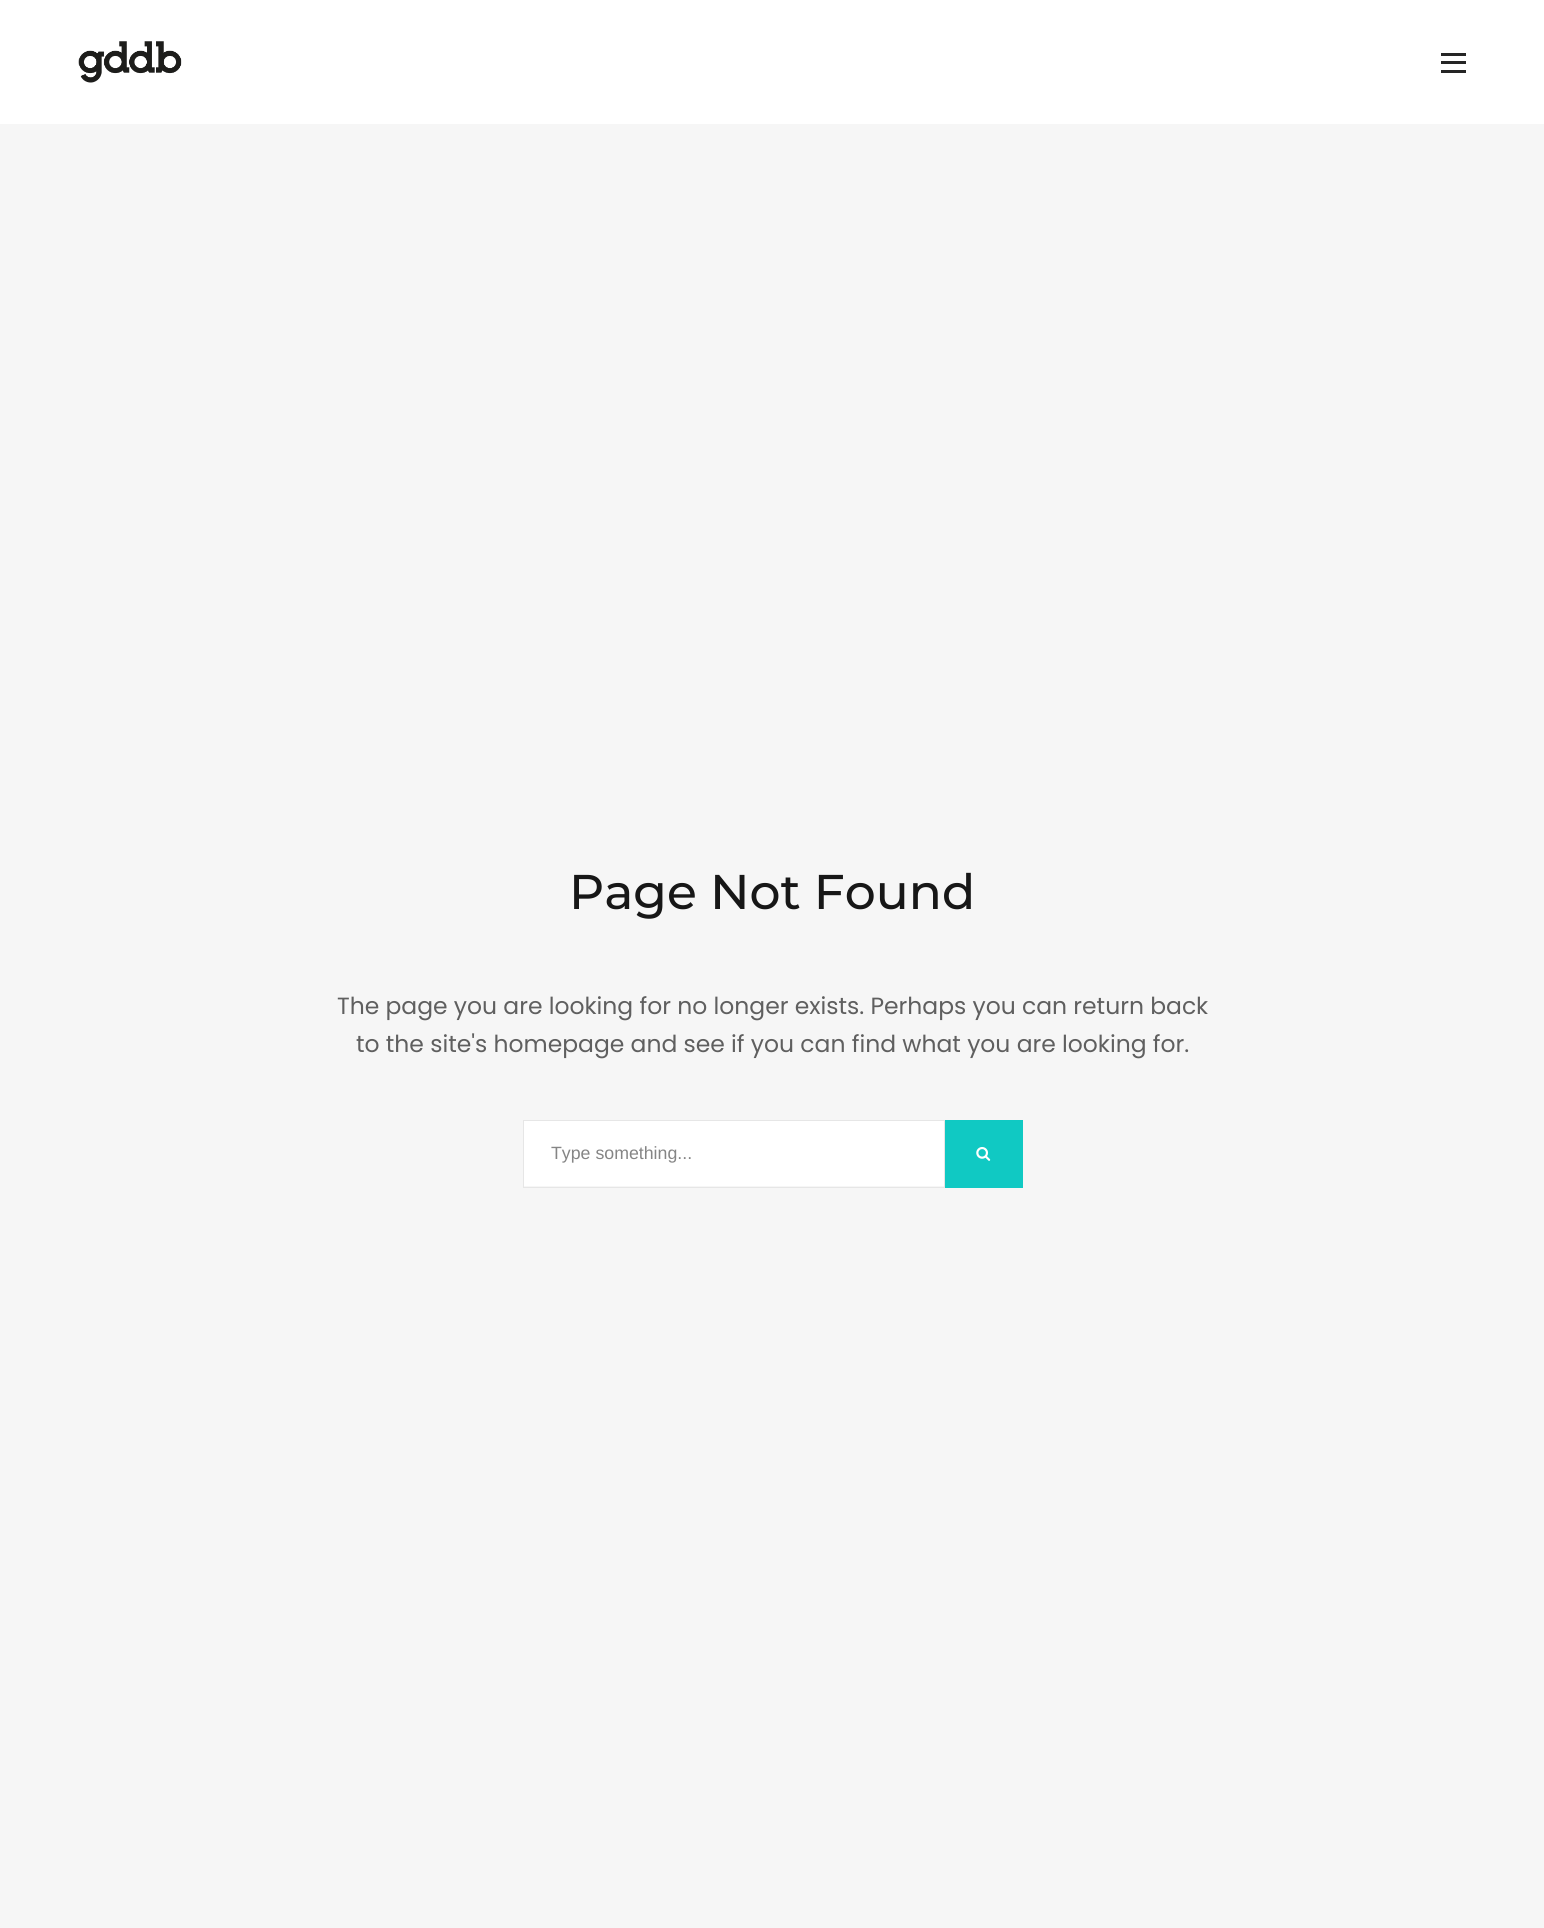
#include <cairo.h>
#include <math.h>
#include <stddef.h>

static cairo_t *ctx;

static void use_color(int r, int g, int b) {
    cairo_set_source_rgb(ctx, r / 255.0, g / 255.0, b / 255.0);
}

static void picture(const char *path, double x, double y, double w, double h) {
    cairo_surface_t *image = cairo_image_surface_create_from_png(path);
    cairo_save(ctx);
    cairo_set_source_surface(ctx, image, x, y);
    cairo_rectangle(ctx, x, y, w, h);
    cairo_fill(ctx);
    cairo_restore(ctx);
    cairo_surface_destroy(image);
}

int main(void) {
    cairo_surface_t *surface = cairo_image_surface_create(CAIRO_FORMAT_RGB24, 1544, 1928);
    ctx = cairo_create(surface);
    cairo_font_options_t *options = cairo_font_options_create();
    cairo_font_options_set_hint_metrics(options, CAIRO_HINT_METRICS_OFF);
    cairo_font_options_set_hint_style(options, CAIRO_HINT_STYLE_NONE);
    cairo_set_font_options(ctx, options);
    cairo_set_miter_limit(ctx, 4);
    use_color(246, 246, 246);
    cairo_paint(ctx);
    use_color(255, 255, 255);
    cairo_rectangle(ctx, 0, 0, 1544, 124);
    cairo_fill(ctx);
    picture("img1.png", 78, 41, 104, 42);
    use_color(37, 37, 37);
    cairo_rectangle(ctx, 1441, 53, 25, 3);
    cairo_fill(ctx);
    cairo_rectangle(ctx, 1441, 61, 25, 3);
    cairo_fill(ctx);
    cairo_rectangle(ctx, 1441, 70, 25, 3);
    cairo_fill(ctx);
    cairo_select_font_face(ctx, "Montserrat Medium", CAIRO_FONT_SLANT_NORMAL, CAIRO_FONT_WEIGHT_NORMAL);
    cairo_set_font_size(ctx, 48.75);
    use_color(23, 23, 23);
    cairo_move_to(ctx, 569, 909);
    cairo_show_text(ctx, "Page Not Found");
    cairo_select_font_face(ctx, "Poppins", CAIRO_FONT_SLANT_NORMAL, CAIRO_FONT_WEIGHT_NORMAL);
    cairo_set_font_size(ctx, 23.45);
    use_color(95, 95, 95);
    cairo_move_to(ctx, 337, 1014);
    cairo_show_text(ctx, "The page you are looking for no longer exists. Perhaps you can return back");
    cairo_move_to(ctx, 356, 1052);
    cairo_show_text(ctx, "to the site's homepage and see if you can find what you are looking for.");
    use_color(255, 255, 255);
    cairo_rectangle(ctx, 524, 1121, 420, 65);
    cairo_fill(ctx);
    cairo_rectangle(ctx, 523.5, 1120.5, 421, 67);
    use_color(230, 230, 230);
    cairo_set_line_width(ctx, 1);
    cairo_stroke(ctx);
    cairo_select_font_face(ctx, "Liberation Sans", CAIRO_FONT_SLANT_NORMAL, CAIRO_FONT_WEIGHT_NORMAL);
    cairo_set_font_size(ctx, 17.75);
    use_color(133, 133, 133);
    cairo_move_to(ctx, 551, 1159);
    cairo_show_text(ctx, "Type something...");
    use_color(16, 201, 195);
    cairo_rectangle(ctx, 945, 1120, 78, 68);
    cairo_fill(ctx);
    picture("img2.png", 976, 1147, 15, 14);
    cairo_surface_write_to_png(surface, "result.png");
    cairo_font_options_destroy(options);
    cairo_destroy(ctx);
    cairo_surface_destroy(surface);
    return 0;
}
